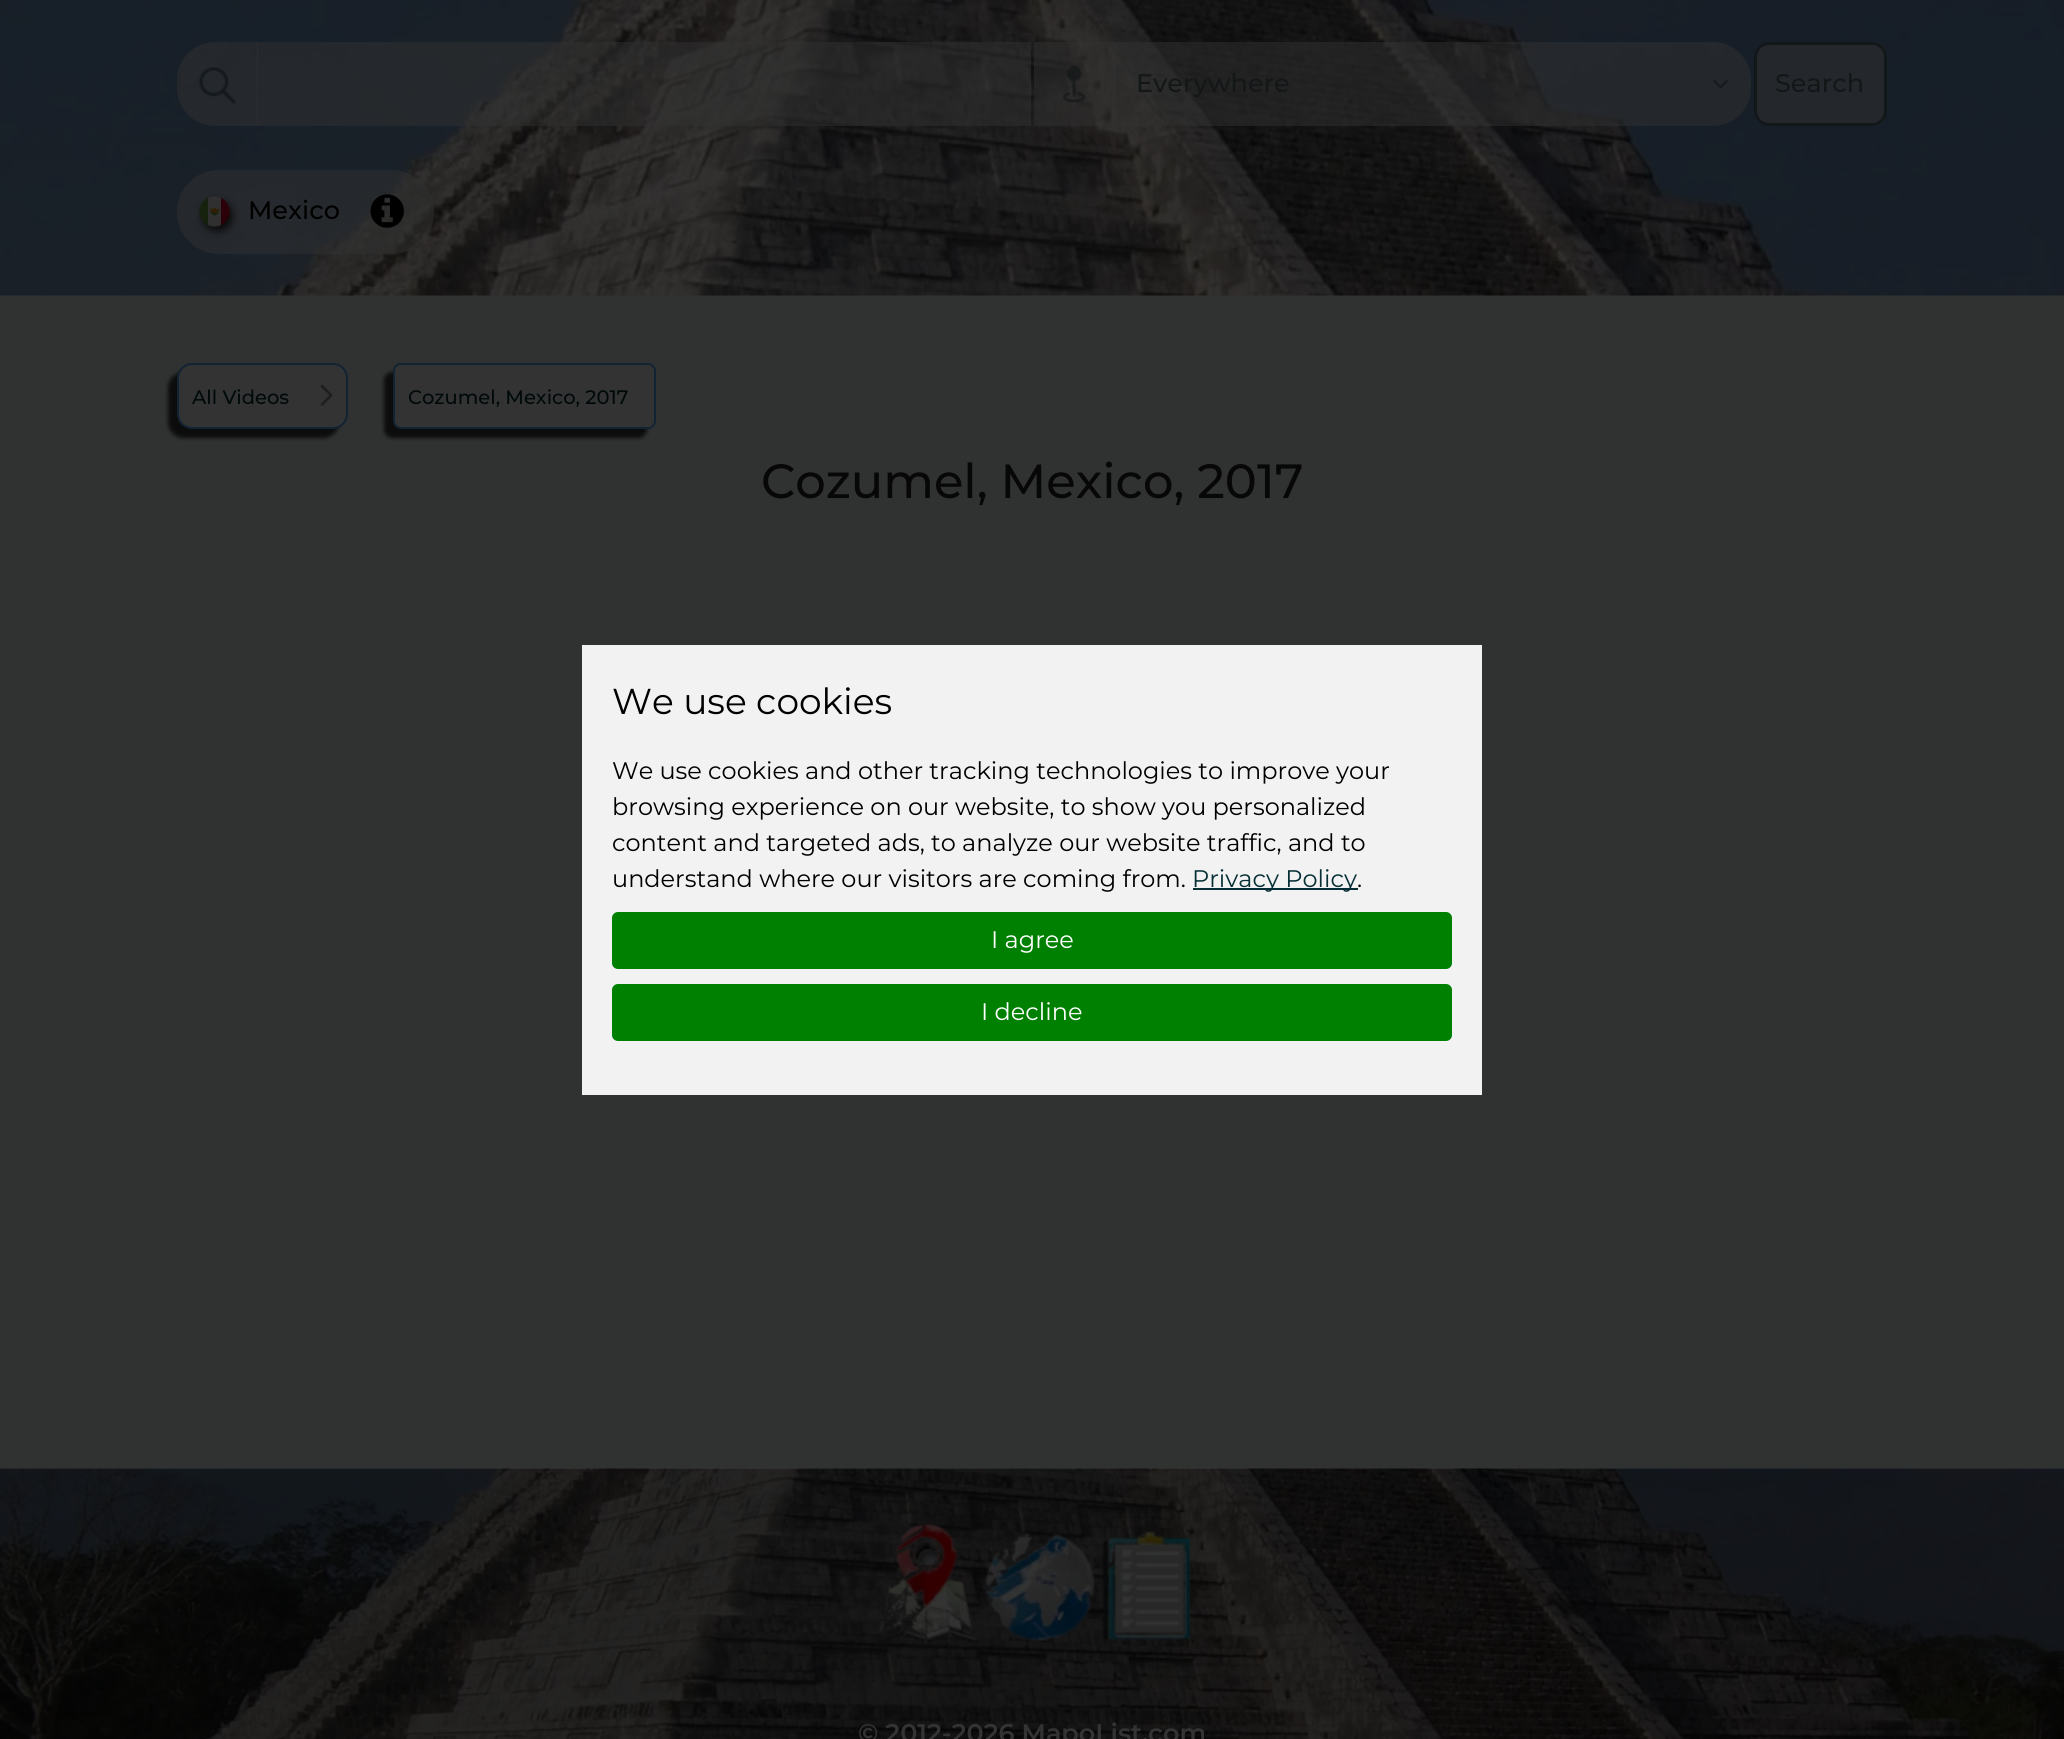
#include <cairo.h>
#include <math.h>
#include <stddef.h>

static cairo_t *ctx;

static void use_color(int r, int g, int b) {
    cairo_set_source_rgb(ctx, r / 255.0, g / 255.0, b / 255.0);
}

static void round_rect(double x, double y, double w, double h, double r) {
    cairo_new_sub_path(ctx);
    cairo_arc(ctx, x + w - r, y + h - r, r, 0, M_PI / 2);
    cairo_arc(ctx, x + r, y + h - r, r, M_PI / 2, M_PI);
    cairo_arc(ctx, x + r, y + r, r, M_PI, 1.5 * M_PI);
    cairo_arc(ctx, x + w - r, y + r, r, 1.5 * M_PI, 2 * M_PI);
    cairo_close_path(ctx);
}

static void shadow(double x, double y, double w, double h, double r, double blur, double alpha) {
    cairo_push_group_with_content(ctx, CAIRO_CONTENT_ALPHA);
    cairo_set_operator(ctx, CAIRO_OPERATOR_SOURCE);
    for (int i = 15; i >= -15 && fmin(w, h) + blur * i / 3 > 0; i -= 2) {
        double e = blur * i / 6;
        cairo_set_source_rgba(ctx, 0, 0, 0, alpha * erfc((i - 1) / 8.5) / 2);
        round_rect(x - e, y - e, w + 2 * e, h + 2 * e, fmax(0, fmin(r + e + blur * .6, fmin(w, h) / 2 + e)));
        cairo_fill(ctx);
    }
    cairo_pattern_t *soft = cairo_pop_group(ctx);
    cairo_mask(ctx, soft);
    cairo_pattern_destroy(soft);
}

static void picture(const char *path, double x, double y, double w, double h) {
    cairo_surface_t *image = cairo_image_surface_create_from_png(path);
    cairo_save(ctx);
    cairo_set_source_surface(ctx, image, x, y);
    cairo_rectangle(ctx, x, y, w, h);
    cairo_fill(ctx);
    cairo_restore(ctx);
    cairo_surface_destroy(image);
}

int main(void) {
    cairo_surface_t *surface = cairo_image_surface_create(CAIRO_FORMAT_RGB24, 2064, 1739);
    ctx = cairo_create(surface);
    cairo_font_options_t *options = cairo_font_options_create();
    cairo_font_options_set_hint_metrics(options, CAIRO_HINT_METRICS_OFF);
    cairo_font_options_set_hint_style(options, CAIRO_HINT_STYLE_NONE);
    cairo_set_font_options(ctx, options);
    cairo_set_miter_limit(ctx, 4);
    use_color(48, 49, 49);
    cairo_paint(ctx);
    picture("img1.png", 0, 0, 2064, 296);
    cairo_set_source_rgba(ctx, 0.2, 0.2, 0.2, 0.5);
    cairo_new_path(ctx);
    cairo_move_to(ctx, 215, 42);
    cairo_line_to(ctx, 258, 42);
    cairo_line_to(ctx, 258, 126);
    cairo_line_to(ctx, 215, 126);
    cairo_curve_to(ctx, 194, 126, 177, 109, 177, 88);
    cairo_line_to(ctx, 177, 80);
    cairo_curve_to(ctx, 177, 59, 194, 42, 215, 42);
    cairo_close_path(ctx);
    cairo_fill(ctx);
    picture("img2.png", 199, 67, 37, 37);
    cairo_rectangle(ctx, 257, 42, 774, 84);
    cairo_fill(ctx);
    cairo_rectangle(ctx, 1034, 42, 81, 84);
    cairo_fill(ctx);
    picture("img3.png", 1062, 65, 25, 37);
    cairo_new_path(ctx);
    cairo_move_to(ctx, 1113, 42);
    cairo_line_to(ctx, 1713, 42);
    cairo_curve_to(ctx, 1734, 42, 1751, 59, 1751, 80);
    cairo_line_to(ctx, 1751, 88);
    cairo_curve_to(ctx, 1751, 109, 1734, 126, 1713, 126);
    cairo_line_to(ctx, 1113, 126);
    cairo_close_path(ctx);
    cairo_fill(ctx);
    cairo_new_path(ctx);
    cairo_move_to(ctx, 1714, 80.5);
    cairo_line_to(ctx, 1720.5, 87.5);
    cairo_line_to(ctx, 1727, 80.5);
    use_color(24, 26, 29);
    cairo_set_line_width(ctx, 2.2);
    cairo_set_line_cap(ctx, CAIRO_LINE_CAP_ROUND);
    cairo_set_line_join(ctx, CAIRO_LINE_JOIN_ROUND);
    cairo_stroke(ctx);
    cairo_select_font_face(ctx, "Montserrat Medium", CAIRO_FONT_SLANT_NORMAL, CAIRO_FONT_WEIGHT_NORMAL);
    cairo_set_font_size(ctx, 25.5);
    use_color(19, 23, 24);
    cairo_move_to(ctx, 1136, 92);
    cairo_show_text(ctx, "Everywhere");
    cairo_set_source_rgba(ctx, 0.2, 0.2, 0.2, 0.5);
    round_rect(1754, 42, 133, 84, 15);
    cairo_fill(ctx);
    round_rect(1755.5, 43.5, 130, 81, 13.5);
    cairo_set_source_rgba(ctx, 0, 0.035, 0.039, 0.5);
    cairo_set_line_width(ctx, 3);
    cairo_set_line_cap(ctx, CAIRO_LINE_CAP_BUTT);
    cairo_set_line_join(ctx, CAIRO_LINE_JOIN_MITER);
    cairo_stroke(ctx);
    use_color(19, 23, 24);
    cairo_move_to(ctx, 1775, 92);
    cairo_show_text(ctx, "Search");
    cairo_set_source_rgba(ctx, 0.2, 0.2, 0.2, 0.5);
    round_rect(177, 170, 257, 84, 42);
    cairo_fill(ctx);
    picture("img4.png", 195, 193, 45, 46);
    use_color(0, 0, 0);
    cairo_move_to(ctx, 248, 219);
    cairo_show_text(ctx, "Mexico");
    picture("img5.png", 370, 194, 34, 34);
    use_color(0, 0, 0);
    shadow(168, 372, 171, 66, 15, 2, 0.75);
    use_color(51, 51, 51);
    round_rect(178, 364, 169, 64, 14);
    cairo_fill_preserve(ctx);
    use_color(18, 35, 51);
    cairo_set_line_width(ctx, 2);
    cairo_stroke(ctx);
    cairo_set_font_size(ctx, 19.5);
    use_color(0, 9, 10);
    cairo_move_to(ctx, 192, 404);
    cairo_show_text(ctx, "All Videos");
    picture("img6.png", 319, 384, 14, 23);
    use_color(0, 0, 0);
    shadow(384, 372, 263, 66, 8, 2, 0.75);
    use_color(51, 51, 51);
    round_rect(394, 364, 261, 64, 7);
    cairo_fill_preserve(ctx);
    use_color(18, 35, 51);
    cairo_stroke(ctx);
    use_color(0, 9, 10);
    cairo_move_to(ctx, 408, 404);
    cairo_show_text(ctx, "Cozumel, Mexico, 2017");
    cairo_set_font_size(ctx, 48);
    use_color(7, 7, 8);
    cairo_move_to(ctx, 761, 498);
    cairo_show_text(ctx, "Cozumel, Mexico, 2017");
    use_color(242, 242, 242);
    cairo_rectangle(ctx, 582, 645, 900, 450);
    cairo_fill(ctx);
    cairo_select_font_face(ctx, "Montserrat", CAIRO_FONT_SLANT_NORMAL, CAIRO_FONT_WEIGHT_NORMAL);
    cairo_set_font_size(ctx, 36);
    use_color(0, 0, 0);
    cairo_move_to(ctx, 612, 714);
    cairo_show_text(ctx, "We use cookies");
    cairo_set_font_size(ctx, 24);
    cairo_move_to(ctx, 612, 779);
    cairo_show_text(ctx, "We use cookies and other tracking technologies to improve your");
    cairo_move_to(ctx, 612, 815);
    cairo_show_text(ctx, "browsing experience on our website, to show you personalized");
    cairo_move_to(ctx, 612, 851);
    cairo_show_text(ctx, "content and targeted ads, to analyze our website traffic, and to");
    cairo_move_to(ctx, 612, 887);
    cairo_show_text(ctx, "understand where our visitors are coming from.");
    use_color(6, 47, 53);
    cairo_rectangle(ctx, 1193, 888, 165, 2);
    cairo_fill(ctx);
    cairo_move_to(ctx, 1192, 887);
    cairo_show_text(ctx, "Privacy Policy");
    use_color(0, 0, 0);
    cairo_move_to(ctx, 1357, 887);
    cairo_show_text(ctx, ".");
    use_color(0, 128, 0);
    round_rect(612, 912, 840, 57, 6);
    cairo_fill(ctx);
    use_color(255, 255, 255);
    cairo_move_to(ctx, 991, 948);
    cairo_show_text(ctx, "I agree");
    use_color(0, 128, 0);
    round_rect(612, 984, 840, 57, 6);
    cairo_fill(ctx);
    use_color(255, 255, 255);
    cairo_move_to(ctx, 981, 1020);
    cairo_show_text(ctx, "I decline");
    picture("img7.png", 0, 1468, 2064, 271);
    picture("img8.png", 876, 1522, 316, 123);
    cairo_select_font_face(ctx, "Montserrat SemiBold", CAIRO_FONT_SLANT_NORMAL, CAIRO_FONT_WEIGHT_NORMAL);
    cairo_set_font_size(ctx, 25.5);
    use_color(51, 51, 51);
    cairo_move_to(ctx, 858, 1742);
    cairo_show_text(ctx, "© 2012-2026 MapoList.com");
    cairo_surface_write_to_png(surface, "result.png");
    cairo_font_options_destroy(options);
    cairo_destroy(ctx);
    cairo_surface_destroy(surface);
    return 0;
}
